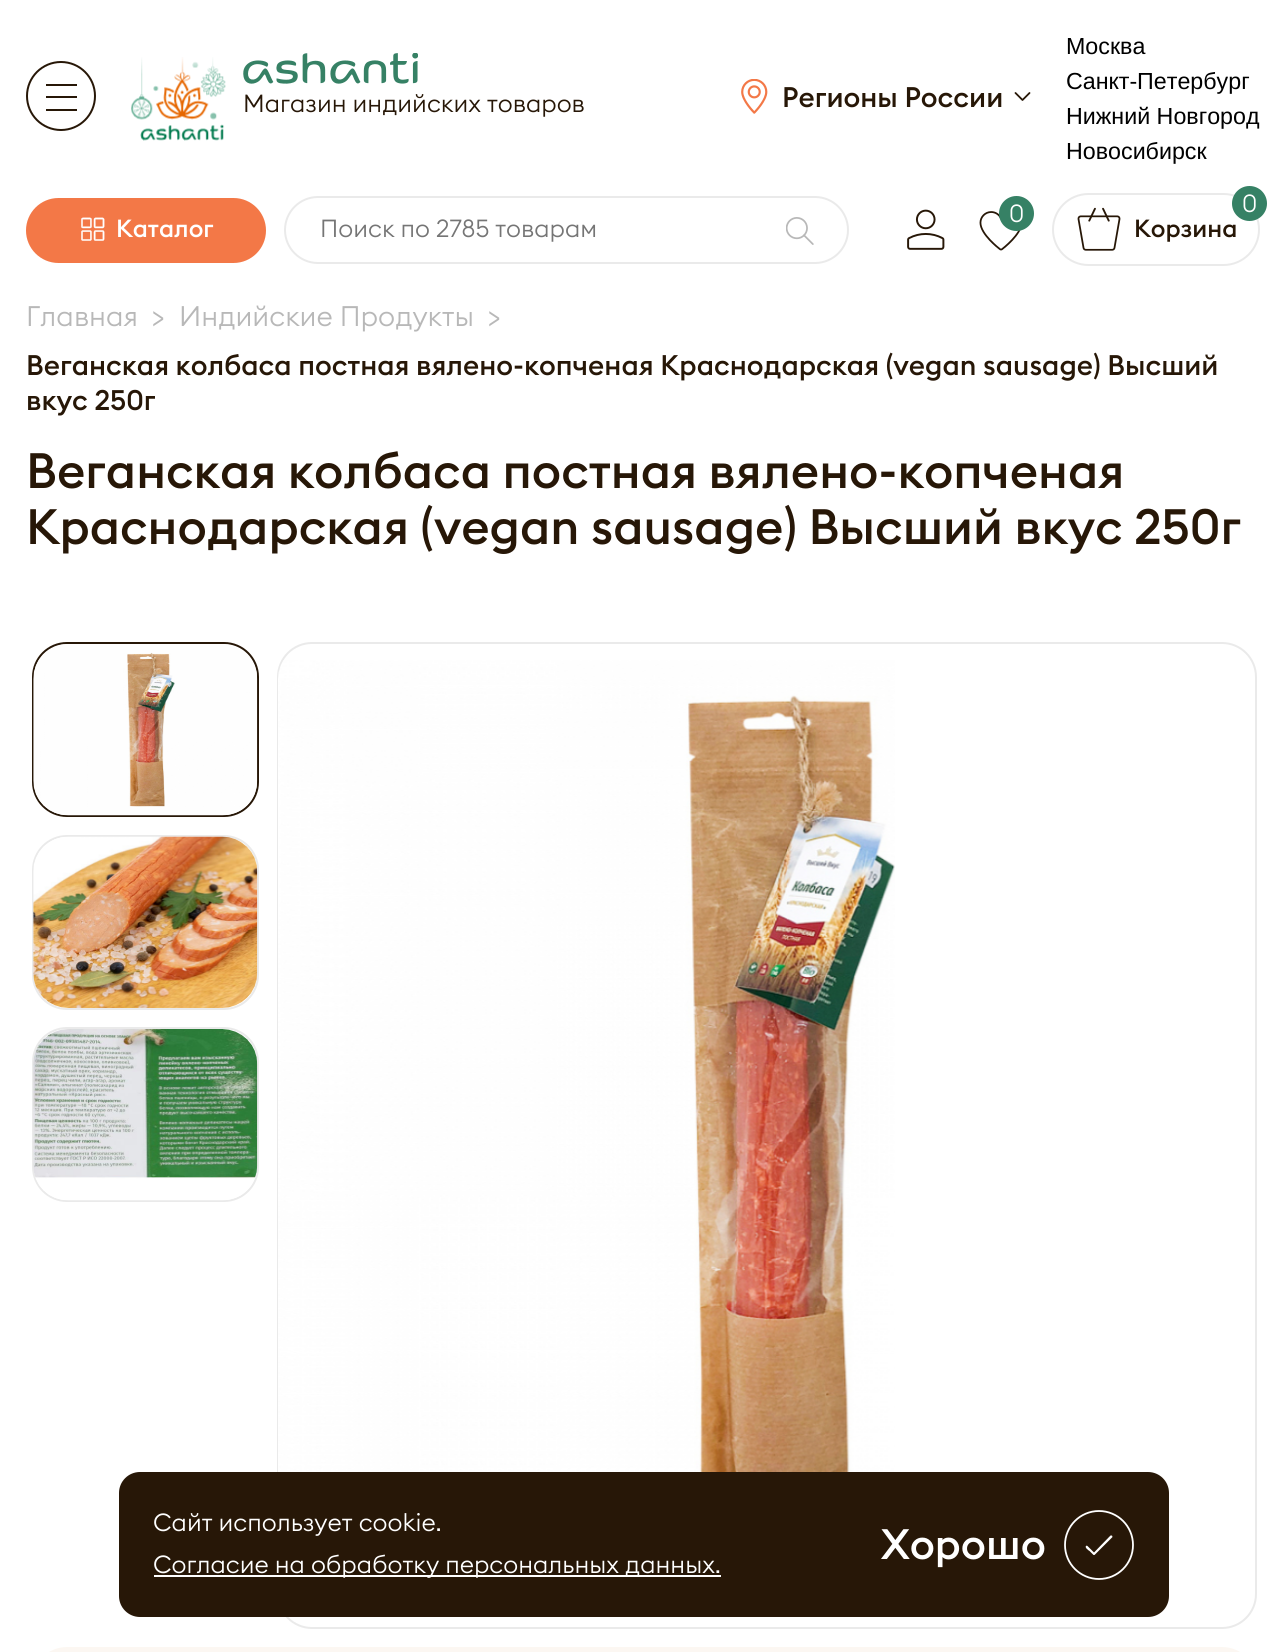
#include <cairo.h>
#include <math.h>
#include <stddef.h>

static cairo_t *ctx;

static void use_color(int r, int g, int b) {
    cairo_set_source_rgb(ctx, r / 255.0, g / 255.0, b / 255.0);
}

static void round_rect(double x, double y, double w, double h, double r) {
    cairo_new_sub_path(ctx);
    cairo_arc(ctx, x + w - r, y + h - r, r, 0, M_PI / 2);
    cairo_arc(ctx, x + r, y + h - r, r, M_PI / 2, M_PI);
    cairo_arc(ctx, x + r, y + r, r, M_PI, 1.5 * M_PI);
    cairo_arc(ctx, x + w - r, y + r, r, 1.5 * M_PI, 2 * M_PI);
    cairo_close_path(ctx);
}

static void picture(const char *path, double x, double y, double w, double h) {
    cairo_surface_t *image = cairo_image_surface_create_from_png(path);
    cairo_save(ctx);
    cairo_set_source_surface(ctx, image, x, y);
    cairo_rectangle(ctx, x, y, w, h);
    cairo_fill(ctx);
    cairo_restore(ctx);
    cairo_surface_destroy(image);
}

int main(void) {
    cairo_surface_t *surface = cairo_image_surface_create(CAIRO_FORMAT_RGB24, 1285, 1652);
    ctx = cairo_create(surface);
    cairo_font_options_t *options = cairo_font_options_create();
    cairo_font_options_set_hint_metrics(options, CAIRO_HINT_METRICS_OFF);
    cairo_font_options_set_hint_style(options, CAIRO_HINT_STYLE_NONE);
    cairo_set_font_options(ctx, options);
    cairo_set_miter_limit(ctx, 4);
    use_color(255, 255, 255);
    cairo_paint(ctx);
    cairo_arc(ctx, 61, 96, 34, 0, 2 * M_PI);
    use_color(39, 23, 7);
    cairo_stroke(ctx);
    cairo_rectangle(ctx, 46, 84, 31, 2);
    cairo_fill(ctx);
    cairo_rectangle(ctx, 46, 96, 31, 2);
    cairo_fill(ctx);
    cairo_rectangle(ctx, 46, 109, 31, 2);
    cairo_fill(ctx);
    picture("img1.png", 131, 57, 95, 84);
    picture("img2.png", 243, 53, 175, 31);
    cairo_select_font_face(ctx, "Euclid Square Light", CAIRO_FONT_SLANT_NORMAL, CAIRO_FONT_WEIGHT_NORMAL);
    cairo_set_font_size(ctx, 24.5);
    cairo_move_to(ctx, 243, 112);
    cairo_show_text(ctx, "Магазин индийских товаров");
    picture("img3.png", 741, 79, 27, 35);
    cairo_select_font_face(ctx, "Euclid Square Medium", CAIRO_FONT_SLANT_NORMAL, CAIRO_FONT_WEIGHT_NORMAL);
    cairo_set_font_size(ctx, 28);
    cairo_move_to(ctx, 782, 107);
    cairo_show_text(ctx, "Регионы России");
    cairo_new_path(ctx);
    cairo_move_to(ctx, 1029.5, 93);
    cairo_line_to(ctx, 1022.5, 100);
    cairo_line_to(ctx, 1015.5, 93);
    cairo_set_line_width(ctx, 1.8);
    cairo_set_line_cap(ctx, CAIRO_LINE_CAP_ROUND);
    cairo_set_line_join(ctx, CAIRO_LINE_JOIN_ROUND);
    cairo_stroke(ctx);
    cairo_select_font_face(ctx, "Liberation Sans", CAIRO_FONT_SLANT_NORMAL, CAIRO_FONT_WEIGHT_NORMAL);
    cairo_set_font_size(ctx, 23.25);
    use_color(0, 0, 0);
    cairo_move_to(ctx, 1066, 54);
    cairo_show_text(ctx, "Москва");
    cairo_move_to(ctx, 1066, 89);
    cairo_show_text(ctx, "Санкт-Петербург");
    cairo_move_to(ctx, 1066, 124);
    cairo_show_text(ctx, "Нижний Новгород");
    cairo_move_to(ctx, 1066, 159);
    cairo_show_text(ctx, "Новосибирск");
    use_color(243, 120, 71);
    round_rect(26, 198, 240, 65, 32.5);
    cairo_fill(ctx);
    picture("img4.png", 81, 217, 24, 24);
    cairo_select_font_face(ctx, "Euclid Square Medium", CAIRO_FONT_SLANT_NORMAL, CAIRO_FONT_WEIGHT_NORMAL);
    cairo_set_font_size(ctx, 24.5);
    use_color(255, 255, 255);
    cairo_move_to(ctx, 116, 237);
    cairo_show_text(ctx, "Каталог");
    round_rect(285, 197, 563, 66, 33);
    use_color(234, 234, 234);
    cairo_set_line_width(ctx, 2);
    cairo_set_line_cap(ctx, CAIRO_LINE_CAP_BUTT);
    cairo_set_line_join(ctx, CAIRO_LINE_JOIN_MITER);
    cairo_stroke(ctx);
    cairo_select_font_face(ctx, "Euclid Square Light", CAIRO_FONT_SLANT_NORMAL, CAIRO_FONT_WEIGHT_NORMAL);
    use_color(117, 117, 117);
    cairo_move_to(ctx, 320, 237);
    cairo_show_text(ctx, "Поиск по 2785 товарам");
    picture("img5.png", 786, 217, 28, 28);
    picture("img6.png", 907, 209, 38, 41);
    picture("img7.png", 979, 211, 42, 40);
    use_color(54, 129, 101);
    cairo_arc(ctx, 1016.5, 213.5, 17.5, 0, 2 * M_PI);
    cairo_fill(ctx);
    use_color(255, 255, 255);
    cairo_move_to(ctx, 1009, 222);
    cairo_show_text(ctx, "0");
    round_rect(1053, 194, 206, 71, 35.5);
    use_color(234, 234, 234);
    cairo_stroke(ctx);
    cairo_select_font_face(ctx, "Euclid Square Medium", CAIRO_FONT_SLANT_NORMAL, CAIRO_FONT_WEIGHT_NORMAL);
    use_color(39, 23, 7);
    cairo_move_to(ctx, 1134, 237);
    cairo_show_text(ctx, "Корзина");
    use_color(54, 129, 101);
    cairo_new_path(ctx);
    cairo_arc(ctx, 1249.5, 203.5, 17.5, 0, 2 * M_PI);
    cairo_fill(ctx);
    cairo_select_font_face(ctx, "Euclid Square Light", CAIRO_FONT_SLANT_NORMAL, CAIRO_FONT_WEIGHT_NORMAL);
    use_color(255, 255, 255);
    cairo_move_to(ctx, 1242, 212);
    cairo_show_text(ctx, "0");
    picture("img8.png", 1077, 207, 44, 44);
    cairo_set_font_size(ctx, 28);
    use_color(184, 184, 184);
    cairo_move_to(ctx, 26, 326);
    cairo_show_text(ctx, "Главная");
    cairo_move_to(ctx, 152, 326);
    cairo_show_text(ctx, ">");
    cairo_move_to(ctx, 179, 326);
    cairo_show_text(ctx, "Индийские Продукты");
    cairo_move_to(ctx, 488, 326);
    cairo_show_text(ctx, ">");
    cairo_select_font_face(ctx, "Euclid Square Medium", CAIRO_FONT_SLANT_NORMAL, CAIRO_FONT_WEIGHT_NORMAL);
    use_color(39, 23, 7);
    cairo_move_to(ctx, 26, 375);
    cairo_show_text(ctx, "Веганская колбаса постная вялено-копченая Краснодарская (vegan sausage) Высший");
    cairo_move_to(ctx, 26, 410);
    cairo_show_text(ctx, "вкус 250г");
    cairo_set_font_size(ctx, 49);
    cairo_move_to(ctx, 26, 488);
    cairo_show_text(ctx, "Веганская колбаса постная вялено-копченая");
    cairo_move_to(ctx, 26, 544);
    cairo_show_text(ctx, "Краснодарская (vegan sausage) Высший вкус 250г");
    round_rect(33, 643, 225, 173, 34);
    cairo_stroke(ctx);
    picture("img9.png", 33, 644, 225, 172);
    round_rect(33, 836, 225, 173, 34);
    use_color(234, 234, 234);
    cairo_stroke(ctx);
    picture("img10.png", 33, 836, 225, 172);
    round_rect(33, 1028, 225, 173, 34);
    cairo_stroke(ctx);
    picture("img11.png", 33, 1029, 225, 172);
    round_rect(278, 643, 978, 985, 34);
    cairo_stroke(ctx);
    picture("img12.png", 278, 660, 617, 812);
    use_color(252, 247, 242);
    round_rect(32, 1647, 1225, 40, 35);
    cairo_fill(ctx);
    use_color(39, 23, 7);
    round_rect(119, 1472, 1050, 145, 21);
    cairo_fill(ctx);
    cairo_select_font_face(ctx, "Euclid Square Light", CAIRO_FONT_SLANT_NORMAL, CAIRO_FONT_WEIGHT_NORMAL);
    cairo_set_font_size(ctx, 24.5);
    use_color(255, 255, 255);
    cairo_move_to(ctx, 153, 1531);
    cairo_show_text(ctx, "Сайт использует cookie.");
    cairo_rectangle(ctx, 154, 1575, 567, 2);
    cairo_fill(ctx);
    cairo_move_to(ctx, 153, 1573);
    cairo_show_text(ctx, "Согласие на обработку персональных данных.");
    cairo_select_font_face(ctx, "Euclid Square Medium", CAIRO_FONT_SLANT_NORMAL, CAIRO_FONT_WEIGHT_NORMAL);
    cairo_set_font_size(ctx, 42);
    cairo_move_to(ctx, 881, 1559);
    cairo_show_text(ctx, "Хорошо");
    cairo_new_path(ctx);
    cairo_arc(ctx, 1099, 1545, 34, 0, 2 * M_PI);
    cairo_set_line_width(ctx, 1.8);
    cairo_stroke(ctx);
    cairo_new_path(ctx);
    cairo_move_to(ctx, 1112, 1535.5);
    cairo_curve_to(ctx, 1112, 1535.5, 1111, 1535.5, 1110.5, 1535.5);
    cairo_line_to(ctx, 1094, 1552.5);
    cairo_line_to(ctx, 1088.5, 1547);
    cairo_curve_to(ctx, 1088, 1546.5, 1087, 1545, 1086, 1546);
    cairo_curve_to(ctx, 1084.5, 1547.5, 1088.5, 1550.5, 1089.5, 1551);
    cairo_line_to(ctx, 1093.5, 1555);
    cairo_line_to(ctx, 1094.5, 1555);
    cairo_line_to(ctx, 1112.5, 1537);
    cairo_close_path(ctx);
    cairo_fill(ctx);
    cairo_surface_write_to_png(surface, "result.png");
    cairo_font_options_destroy(options);
    cairo_destroy(ctx);
    cairo_surface_destroy(surface);
    return 0;
}
